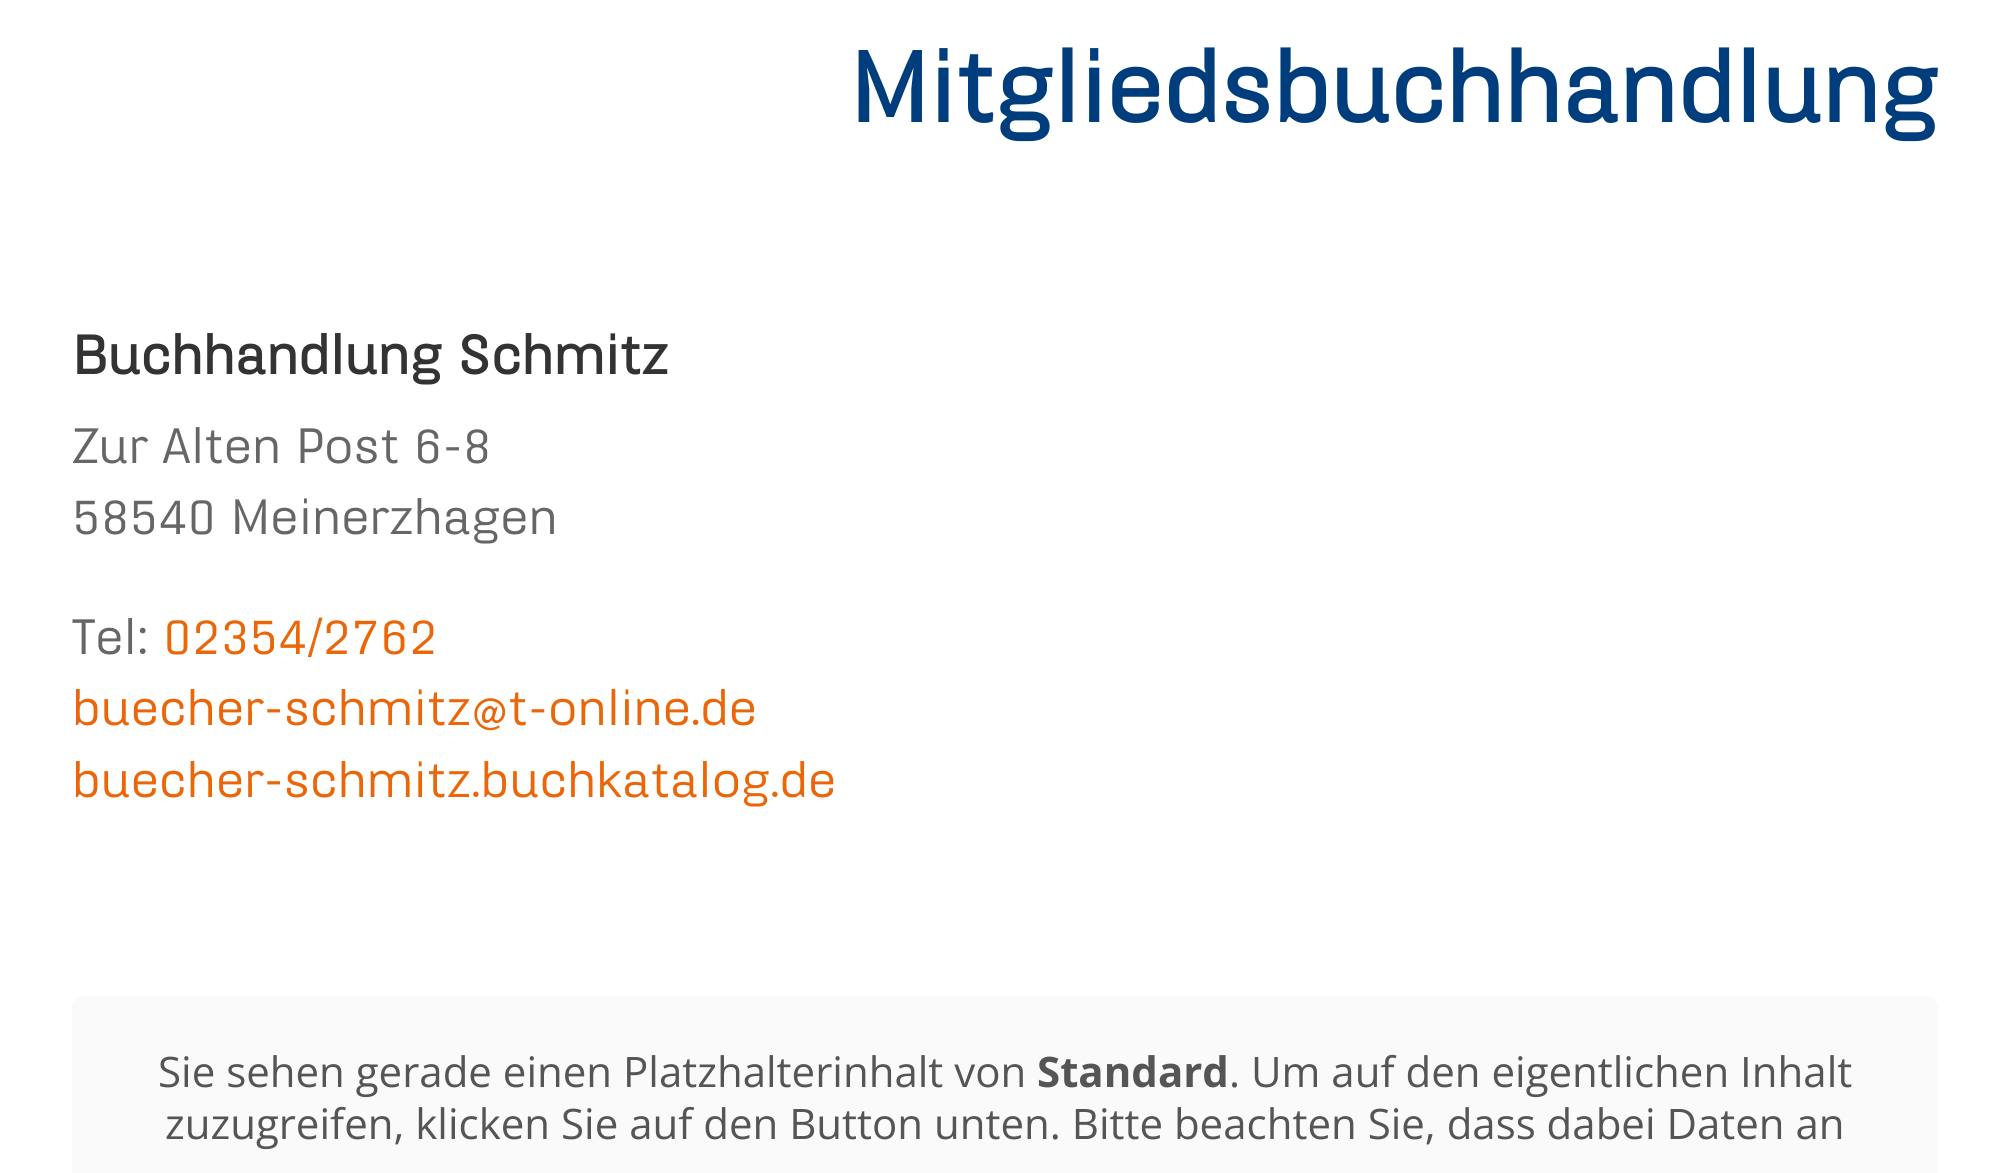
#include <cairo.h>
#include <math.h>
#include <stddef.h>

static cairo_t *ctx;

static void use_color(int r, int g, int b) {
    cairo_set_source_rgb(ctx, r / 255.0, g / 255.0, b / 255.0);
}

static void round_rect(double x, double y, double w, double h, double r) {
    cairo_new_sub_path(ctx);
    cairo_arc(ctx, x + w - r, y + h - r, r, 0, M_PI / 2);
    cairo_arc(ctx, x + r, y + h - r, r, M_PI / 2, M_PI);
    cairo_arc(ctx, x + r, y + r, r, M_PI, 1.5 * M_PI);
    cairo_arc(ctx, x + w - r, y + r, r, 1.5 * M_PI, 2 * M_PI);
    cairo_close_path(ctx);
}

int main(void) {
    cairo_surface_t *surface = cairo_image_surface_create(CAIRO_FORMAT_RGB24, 2010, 1173);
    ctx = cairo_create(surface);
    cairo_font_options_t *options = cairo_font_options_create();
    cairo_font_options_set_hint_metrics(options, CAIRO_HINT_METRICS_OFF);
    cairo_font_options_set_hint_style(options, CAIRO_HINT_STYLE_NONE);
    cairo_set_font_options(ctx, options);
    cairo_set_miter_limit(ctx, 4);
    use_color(255, 255, 255);
    cairo_paint(ctx);
    cairo_select_font_face(ctx, "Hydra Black", CAIRO_FONT_SLANT_NORMAL, CAIRO_FONT_WEIGHT_BOLD);
    cairo_set_font_size(ctx, 96);
    use_color(0, 61, 124);
    cairo_move_to(ctx, 849, 122);
    cairo_show_text(ctx, "Mitgliedsbuchhandlung");
    cairo_set_font_size(ctx, 52.75);
    use_color(51, 51, 51);
    cairo_move_to(ctx, 72, 374);
    cairo_show_text(ctx, "Buchhandlung Schmitz");
    cairo_select_font_face(ctx, "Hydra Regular", CAIRO_FONT_SLANT_NORMAL, CAIRO_FONT_WEIGHT_NORMAL);
    cairo_set_font_size(ctx, 48);
    use_color(102, 102, 102);
    cairo_move_to(ctx, 72, 463);
    cairo_show_text(ctx, "Zur Alten Post 6-8");
    cairo_move_to(ctx, 72, 534);
    cairo_show_text(ctx, "58540 Meinerzhagen");
    cairo_move_to(ctx, 72, 654);
    cairo_show_text(ctx, "Tel:");
    use_color(235, 102, 8);
    cairo_move_to(ctx, 163, 654);
    cairo_show_text(ctx, "02354/2762");
    cairo_move_to(ctx, 72, 725);
    cairo_show_text(ctx, "buecher-schmitz@t-online.de");
    cairo_move_to(ctx, 72, 797);
    cairo_show_text(ctx, "buecher-schmitz.buchkatalog.de");
    use_color(250, 250, 250);
    round_rect(72, 996, 1866, 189, 12);
    cairo_fill(ctx);
    cairo_select_font_face(ctx, "Open Sans", CAIRO_FONT_SLANT_NORMAL, CAIRO_FONT_WEIGHT_NORMAL);
    cairo_set_font_size(ctx, 42);
    use_color(85, 85, 85);
    cairo_move_to(ctx, 158, 1087);
    cairo_show_text(ctx, "Sie sehen gerade einen Platzhalterinhalt von");
    cairo_select_font_face(ctx, "Open Sans", CAIRO_FONT_SLANT_NORMAL, CAIRO_FONT_WEIGHT_BOLD);
    cairo_move_to(ctx, 1037, 1087);
    cairo_show_text(ctx, "Standard");
    cairo_select_font_face(ctx, "Open Sans", CAIRO_FONT_SLANT_NORMAL, CAIRO_FONT_WEIGHT_NORMAL);
    cairo_move_to(ctx, 1229, 1087);
    cairo_show_text(ctx, ". Um auf den eigentlichen Inhalt");
    cairo_move_to(ctx, 165, 1139);
    cairo_show_text(ctx, "zuzugreifen, klicken Sie auf den Button unten. Bitte beachten Sie, dass dabei Daten an");
    cairo_surface_write_to_png(surface, "result.png");
    cairo_font_options_destroy(options);
    cairo_destroy(ctx);
    cairo_surface_destroy(surface);
    return 0;
}
